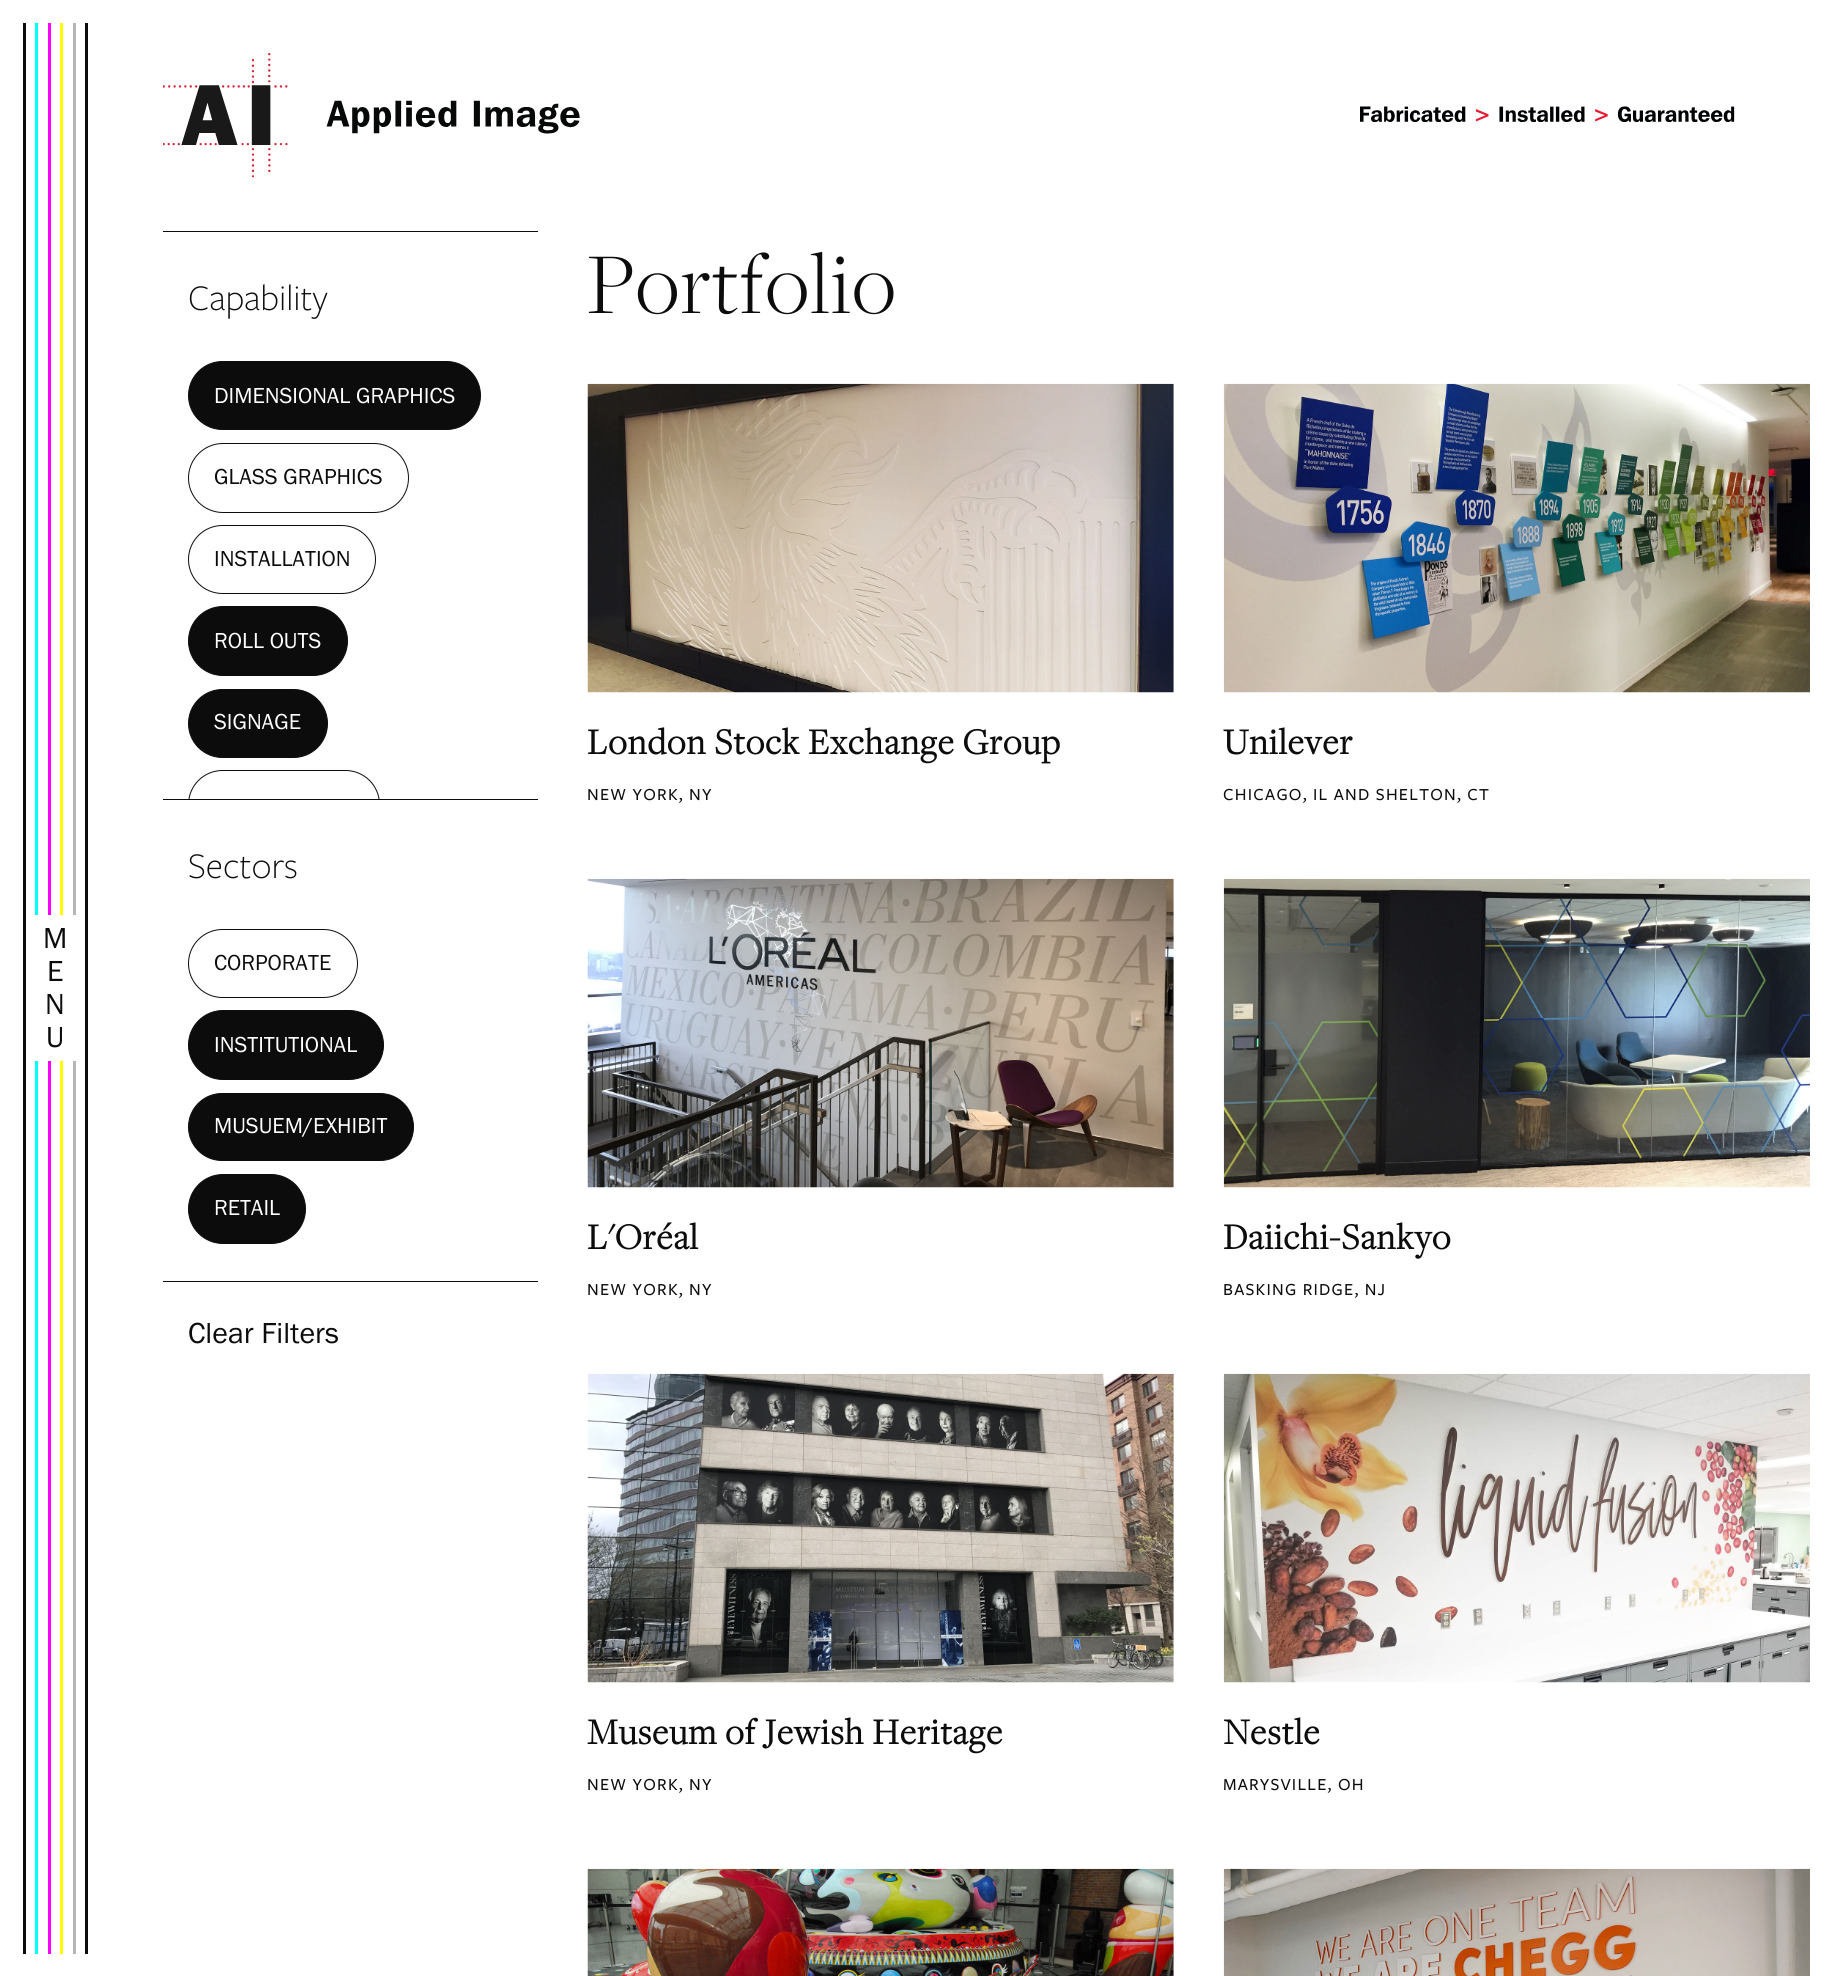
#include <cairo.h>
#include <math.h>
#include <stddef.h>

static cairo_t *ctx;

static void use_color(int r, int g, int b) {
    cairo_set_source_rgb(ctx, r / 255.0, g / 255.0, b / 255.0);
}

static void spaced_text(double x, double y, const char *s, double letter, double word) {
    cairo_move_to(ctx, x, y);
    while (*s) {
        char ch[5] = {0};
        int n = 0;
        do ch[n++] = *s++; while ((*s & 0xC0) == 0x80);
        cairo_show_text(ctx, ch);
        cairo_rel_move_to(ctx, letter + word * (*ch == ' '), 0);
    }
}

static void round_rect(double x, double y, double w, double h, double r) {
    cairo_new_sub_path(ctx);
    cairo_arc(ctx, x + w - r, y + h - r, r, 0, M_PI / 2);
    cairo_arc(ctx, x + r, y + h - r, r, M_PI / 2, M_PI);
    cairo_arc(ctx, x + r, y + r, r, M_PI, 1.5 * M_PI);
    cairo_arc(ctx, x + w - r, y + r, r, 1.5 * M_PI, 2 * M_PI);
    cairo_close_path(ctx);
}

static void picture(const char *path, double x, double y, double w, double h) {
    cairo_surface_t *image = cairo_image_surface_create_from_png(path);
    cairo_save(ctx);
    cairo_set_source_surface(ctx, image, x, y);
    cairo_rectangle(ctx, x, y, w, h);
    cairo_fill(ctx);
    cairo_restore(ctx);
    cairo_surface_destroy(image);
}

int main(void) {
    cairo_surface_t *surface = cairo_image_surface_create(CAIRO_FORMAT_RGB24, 1847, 1976);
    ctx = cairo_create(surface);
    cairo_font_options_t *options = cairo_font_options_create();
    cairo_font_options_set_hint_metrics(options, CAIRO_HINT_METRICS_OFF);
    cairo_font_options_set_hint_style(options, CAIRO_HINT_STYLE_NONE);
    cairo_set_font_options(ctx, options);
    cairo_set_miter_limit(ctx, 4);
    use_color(255, 255, 255);
    cairo_paint(ctx);
    picture("img1.png", 163, 53, 417, 125);
    picture("img2.png", 1360, 106, 375, 16);
    use_color(12, 12, 12);
    cairo_rectangle(ctx, 85, 23, 3, 1931);
    cairo_fill(ctx);
    cairo_rectangle(ctx, 23, 23, 3, 1931);
    cairo_fill(ctx);
    use_color(0, 255, 255);
    cairo_rectangle(ctx, 35, 23, 3, 1931);
    cairo_fill(ctx);
    use_color(255, 0, 255);
    cairo_rectangle(ctx, 48, 23, 3, 1931);
    cairo_fill(ctx);
    use_color(255, 255, 0);
    cairo_rectangle(ctx, 60, 23, 3, 1931);
    cairo_fill(ctx);
    use_color(182, 182, 182);
    cairo_rectangle(ctx, 73, 23, 3, 1931);
    cairo_fill(ctx);
    use_color(255, 255, 255);
    cairo_rectangle(ctx, 35, 915, 41, 146);
    cairo_fill(ctx);
    cairo_select_font_face(ctx, "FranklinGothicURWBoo", CAIRO_FONT_SLANT_NORMAL, CAIRO_FONT_WEIGHT_NORMAL);
    cairo_set_font_size(ctx, 30);
    use_color(12, 12, 12);
    cairo_move_to(ctx, 43, 948);
    cairo_show_text(ctx, "M");
    cairo_move_to(ctx, 47, 981);
    cairo_show_text(ctx, "E");
    cairo_move_to(ctx, 45, 1014);
    cairo_show_text(ctx, "N");
    cairo_move_to(ctx, 46, 1047);
    cairo_show_text(ctx, "U");
    cairo_rectangle(ctx, 163, 231, 375, 1);
    cairo_fill(ctx);
    cairo_rectangle(ctx, 163, 799, 375, 1);
    cairo_fill(ctx);
    cairo_select_font_face(ctx, "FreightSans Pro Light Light", CAIRO_FONT_SLANT_NORMAL, CAIRO_FONT_WEIGHT_NORMAL);
    cairo_set_font_size(ctx, 37.5);
    cairo_move_to(ctx, 188, 310);
    cairo_show_text(ctx, "Capability");
    round_rect(188.5, 361.5, 292, 68, 34);
    cairo_fill_preserve(ctx);
    cairo_set_line_width(ctx, 1);
    cairo_stroke(ctx);
    cairo_select_font_face(ctx, "FranklinGothicURWBoo", CAIRO_FONT_SLANT_NORMAL, CAIRO_FONT_WEIGHT_NORMAL);
    cairo_set_font_size(ctx, 22.5);
    use_color(255, 255, 255);
    cairo_move_to(ctx, 214, 403);
    cairo_show_text(ctx, "DIMENSIONAL GRAPHICS");
    round_rect(188.5, 443.5, 220, 69, 34.5);
    use_color(12, 12, 12);
    cairo_stroke(ctx);
    cairo_move_to(ctx, 214, 484);
    cairo_show_text(ctx, "GLASS GRAPHICS");
    round_rect(188.5, 525.5, 187, 68, 34);
    cairo_stroke(ctx);
    cairo_move_to(ctx, 214, 566);
    cairo_show_text(ctx, "INSTALLATION");
    round_rect(188.5, 606.5, 159, 69, 34.5);
    cairo_fill_preserve(ctx);
    cairo_stroke(ctx);
    use_color(255, 255, 255);
    cairo_move_to(ctx, 214, 648);
    cairo_show_text(ctx, "ROLL OUTS");
    use_color(12, 12, 12);
    round_rect(188.5, 689.5, 139, 68, 34);
    cairo_fill_preserve(ctx);
    cairo_stroke(ctx);
    use_color(255, 255, 255);
    cairo_move_to(ctx, 214, 729);
    cairo_show_text(ctx, "SIGNAGE");
    cairo_save(ctx);
    cairo_rectangle(ctx, 163, 361, 375, 438);
    cairo_clip(ctx);
    round_rect(188.5, 770.5, 191, 68, 34);
    use_color(12, 12, 12);
    cairo_stroke(ctx);
    cairo_restore(ctx);
    use_color(12, 12, 12);
    cairo_rectangle(ctx, 163, 1281, 375, 1);
    cairo_fill(ctx);
    cairo_select_font_face(ctx, "FreightSans Pro Light Light", CAIRO_FONT_SLANT_NORMAL, CAIRO_FONT_WEIGHT_NORMAL);
    cairo_set_font_size(ctx, 37.5);
    cairo_move_to(ctx, 188, 878);
    cairo_show_text(ctx, "Sectors");
    round_rect(188.5, 929.5, 169, 68, 34);
    cairo_stroke(ctx);
    cairo_select_font_face(ctx, "FranklinGothicURWBoo", CAIRO_FONT_SLANT_NORMAL, CAIRO_FONT_WEIGHT_NORMAL);
    cairo_set_font_size(ctx, 22.5);
    cairo_move_to(ctx, 214, 970);
    cairo_show_text(ctx, "CORPORATE");
    round_rect(188.5, 1010.5, 195, 69, 34.5);
    cairo_fill_preserve(ctx);
    cairo_stroke(ctx);
    use_color(255, 255, 255);
    cairo_move_to(ctx, 214, 1052);
    cairo_show_text(ctx, "INSTITUTIONAL");
    use_color(12, 12, 12);
    round_rect(188.5, 1093.5, 225, 67, 33.5);
    cairo_fill_preserve(ctx);
    cairo_stroke(ctx);
    use_color(255, 255, 255);
    cairo_move_to(ctx, 214, 1133);
    cairo_show_text(ctx, "MUSUEM/EXHIBIT");
    use_color(12, 12, 12);
    round_rect(188.5, 1174.5, 117, 69, 34.5);
    cairo_fill_preserve(ctx);
    cairo_stroke(ctx);
    use_color(255, 255, 255);
    cairo_move_to(ctx, 214, 1215);
    cairo_show_text(ctx, "RETAIL");
    cairo_set_font_size(ctx, 30);
    use_color(12, 12, 12);
    cairo_move_to(ctx, 188, 1343);
    cairo_show_text(ctx, "Clear Filters");
    cairo_select_font_face(ctx, "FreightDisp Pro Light", CAIRO_FONT_SLANT_NORMAL, CAIRO_FONT_WEIGHT_NORMAL);
    cairo_set_font_size(ctx, 90);
    spaced_text(587, 313, "Portfolio", 1.25, 0);
    picture("img3.png", 587, 383, 587, 310);
    cairo_select_font_face(ctx, "FreightDisp Pro", CAIRO_FONT_SLANT_NORMAL, CAIRO_FONT_WEIGHT_BOLD);
    cairo_set_font_size(ctx, 37.5);
    spaced_text(587, 754, "London Stock Exchange Group", 1.25, 0);
    cairo_select_font_face(ctx, "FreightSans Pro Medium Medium", CAIRO_FONT_SLANT_NORMAL, CAIRO_FONT_WEIGHT_NORMAL);
    cairo_set_font_size(ctx, 17.5);
    spaced_text(587, 800, "NEW YORK, NY", 1.25, 0);
    picture("img4.png", 1223, 383, 587, 310);
    cairo_select_font_face(ctx, "FreightDisp Pro", CAIRO_FONT_SLANT_NORMAL, CAIRO_FONT_WEIGHT_BOLD);
    cairo_set_font_size(ctx, 37.5);
    spaced_text(1223, 754, "Unilever", 1.25, 0);
    cairo_select_font_face(ctx, "FreightSans Pro Medium Medium", CAIRO_FONT_SLANT_NORMAL, CAIRO_FONT_WEIGHT_NORMAL);
    cairo_set_font_size(ctx, 17.5);
    spaced_text(1223, 800, "CHICAGO, IL AND SHELTON, CT", 1.25, 0);
    picture("img5.png", 587, 878, 587, 310);
    cairo_select_font_face(ctx, "FreightDisp Pro", CAIRO_FONT_SLANT_NORMAL, CAIRO_FONT_WEIGHT_BOLD);
    cairo_set_font_size(ctx, 37.5);
    spaced_text(587, 1249, "L'Oréal", 1.25, 0);
    cairo_select_font_face(ctx, "FreightSans Pro Medium Medium", CAIRO_FONT_SLANT_NORMAL, CAIRO_FONT_WEIGHT_NORMAL);
    cairo_set_font_size(ctx, 17.5);
    spaced_text(587, 1295, "NEW YORK, NY", 1.25, 0);
    picture("img6.png", 1223, 878, 587, 310);
    cairo_select_font_face(ctx, "FreightDisp Pro", CAIRO_FONT_SLANT_NORMAL, CAIRO_FONT_WEIGHT_BOLD);
    cairo_set_font_size(ctx, 37.5);
    spaced_text(1223, 1249, "Daiichi-Sankyo", 1.25, 0);
    cairo_select_font_face(ctx, "FreightSans Pro Medium Medium", CAIRO_FONT_SLANT_NORMAL, CAIRO_FONT_WEIGHT_NORMAL);
    cairo_set_font_size(ctx, 17.5);
    spaced_text(1223, 1295, "BASKING RIDGE, NJ", 1.25, 0);
    picture("img7.png", 587, 1373, 587, 310);
    cairo_select_font_face(ctx, "FreightDisp Pro", CAIRO_FONT_SLANT_NORMAL, CAIRO_FONT_WEIGHT_BOLD);
    cairo_set_font_size(ctx, 37.5);
    spaced_text(587, 1744, "Museum of Jewish Heritage", 1.25, 0);
    cairo_select_font_face(ctx, "FreightSans Pro Medium Medium", CAIRO_FONT_SLANT_NORMAL, CAIRO_FONT_WEIGHT_NORMAL);
    cairo_set_font_size(ctx, 17.5);
    spaced_text(587, 1790, "NEW YORK, NY", 1.25, 0);
    picture("img8.png", 1223, 1373, 587, 310);
    cairo_select_font_face(ctx, "FreightDisp Pro", CAIRO_FONT_SLANT_NORMAL, CAIRO_FONT_WEIGHT_BOLD);
    cairo_set_font_size(ctx, 37.5);
    spaced_text(1223, 1744, "Nestle", 1.25, 0);
    cairo_select_font_face(ctx, "FreightSans Pro Medium Medium", CAIRO_FONT_SLANT_NORMAL, CAIRO_FONT_WEIGHT_NORMAL);
    cairo_set_font_size(ctx, 17.5);
    spaced_text(1223, 1790, "MARYSVILLE, OH", 1.25, 0);
    picture("img9.png", 587, 1868, 587, 108);
    picture("img10.png", 1223, 1868, 587, 108);
    cairo_surface_write_to_png(surface, "result.png");
    cairo_font_options_destroy(options);
    cairo_destroy(ctx);
    cairo_surface_destroy(surface);
    return 0;
}
